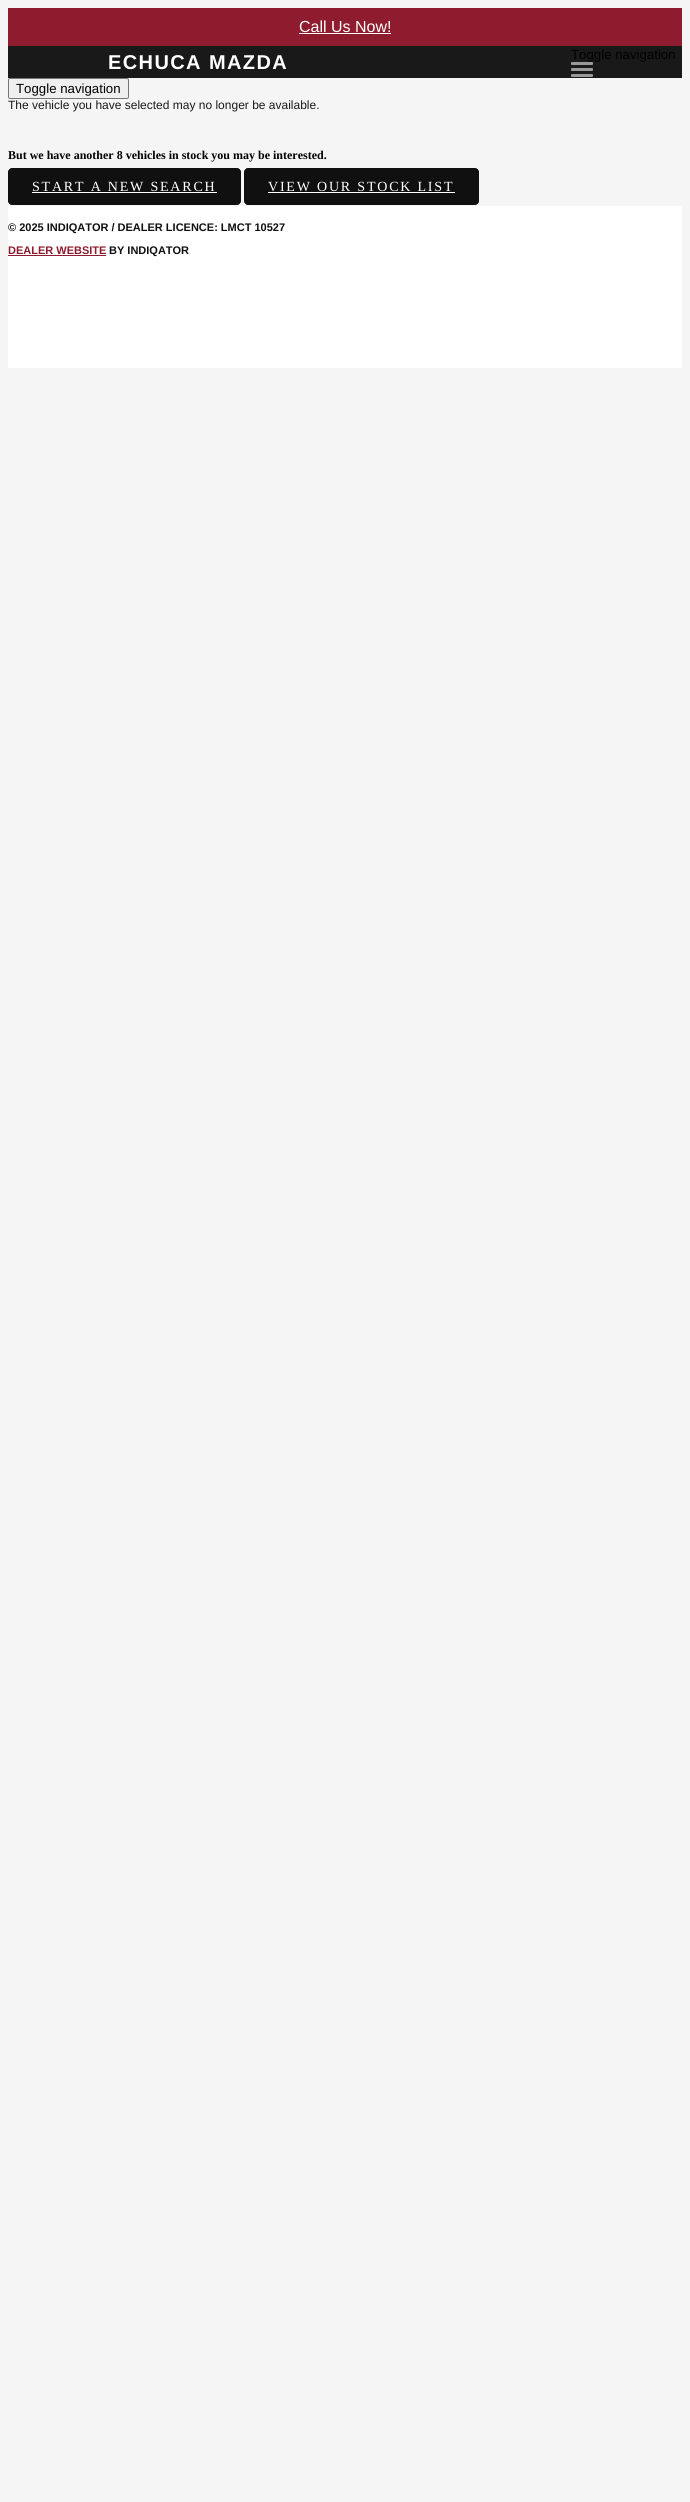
#include <cairo.h>
#include <math.h>
#include <stddef.h>

static cairo_t *ctx;

static void use_color(int r, int g, int b) {
    cairo_set_source_rgb(ctx, r / 255.0, g / 255.0, b / 255.0);
}

static void spaced_text(double x, double y, const char *s, double letter, double word) {
    cairo_move_to(ctx, x, y);
    while (*s) {
        char ch[5] = {0};
        int n = 0;
        do ch[n++] = *s++; while ((*s & 0xC0) == 0x80);
        cairo_show_text(ctx, ch);
        cairo_rel_move_to(ctx, letter + word * (*ch == ' '), 0);
    }
}

static void round_rect(double x, double y, double w, double h, double r) {
    cairo_new_sub_path(ctx);
    cairo_arc(ctx, x + w - r, y + h - r, r, 0, M_PI / 2);
    cairo_arc(ctx, x + r, y + h - r, r, M_PI / 2, M_PI);
    cairo_arc(ctx, x + r, y + r, r, M_PI, 1.5 * M_PI);
    cairo_arc(ctx, x + w - r, y + r, r, 1.5 * M_PI, 2 * M_PI);
    cairo_close_path(ctx);
}

int main(void) {
    cairo_surface_t *surface = cairo_image_surface_create(CAIRO_FORMAT_RGB24, 690, 2502);
    ctx = cairo_create(surface);
    cairo_font_options_t *options = cairo_font_options_create();
    cairo_font_options_set_hint_metrics(options, CAIRO_HINT_METRICS_OFF);
    cairo_font_options_set_hint_style(options, CAIRO_HINT_STYLE_NONE);
    cairo_set_font_options(ctx, options);
    cairo_set_miter_limit(ctx, 4);
    use_color(245, 245, 245);
    cairo_paint(ctx);
    use_color(25, 25, 25);
    cairo_rectangle(ctx, 8, 46, 674, 32);
    cairo_fill(ctx);
    use_color(142, 28, 46);
    cairo_rectangle(ctx, 8, 8, 674, 38);
    cairo_fill(ctx);
    cairo_select_font_face(ctx, "Liberation Sans", CAIRO_FONT_SLANT_NORMAL, CAIRO_FONT_WEIGHT_NORMAL);
    cairo_set_font_size(ctx, 16);
    use_color(255, 255, 255);
    cairo_move_to(ctx, 299, 32);
    cairo_show_text(ctx, "Call Us Now!");
    cairo_rectangle(ctx, 299, 33, 92, 1);
    cairo_fill(ctx);
    cairo_select_font_face(ctx, "Liberation Sans", CAIRO_FONT_SLANT_NORMAL, CAIRO_FONT_WEIGHT_BOLD);
    cairo_set_font_size(ctx, 20);
    spaced_text(108, 69, "ECHUCA MAZDA", 1.4, 0);
    cairo_select_font_face(ctx, "Liberation Sans", CAIRO_FONT_SLANT_NORMAL, CAIRO_FONT_WEIGHT_NORMAL);
    cairo_set_font_size(ctx, 13.25);
    use_color(0, 0, 0);
    cairo_move_to(ctx, 571, 59);
    cairo_show_text(ctx, "Toggle navigation");
    use_color(153, 153, 153);
    round_rect(571, 62, 22, 3, 1);
    cairo_fill(ctx);
    round_rect(571, 68, 22, 3, 1);
    cairo_fill(ctx);
    round_rect(571, 74, 22, 3, 1);
    cairo_fill(ctx);
    use_color(239, 239, 239);
    round_rect(8.5, 78.5, 120, 20, 1.5);
    cairo_fill_preserve(ctx);
    use_color(118, 118, 118);
    cairo_set_line_width(ctx, 1);
    cairo_stroke(ctx);
    use_color(0, 0, 0);
    cairo_move_to(ctx, 16, 93);
    cairo_show_text(ctx, "Toggle navigation");
    cairo_set_font_size(ctx, 12);
    use_color(25, 25, 25);
    cairo_move_to(ctx, 8, 109);
    cairo_show_text(ctx, "The vehicle you have selected may no longer be available.");
    cairo_select_font_face(ctx, "Liberation Serif", CAIRO_FONT_SLANT_NORMAL, CAIRO_FONT_WEIGHT_BOLD);
    use_color(0, 0, 0);
    cairo_move_to(ctx, 8, 159);
    cairo_show_text(ctx, "But we have another 8 vehicles in stock you may be interested.");
    use_color(16, 16, 16);
    cairo_rectangle(ctx, 32, 168, 185, 37);
    cairo_fill(ctx);
    cairo_select_font_face(ctx, "Liberation Serif", CAIRO_FONT_SLANT_NORMAL, CAIRO_FONT_WEIGHT_NORMAL);
    cairo_set_font_size(ctx, 14);
    use_color(255, 255, 255);
    spaced_text(32, 191, "START A NEW SEARCH", 1.8, 0);
    use_color(16, 16, 16);
    cairo_new_path(ctx);
    cairo_move_to(ctx, 13, 168);
    cairo_line_to(ctx, 32, 168);
    cairo_line_to(ctx, 32, 205);
    cairo_line_to(ctx, 13, 205);
    cairo_curve_to(ctx, 10, 205, 8, 203, 8, 200);
    cairo_line_to(ctx, 8, 173);
    cairo_curve_to(ctx, 8, 170, 10, 168, 13, 168);
    cairo_close_path(ctx);
    cairo_fill(ctx);
    cairo_set_fill_rule(ctx, CAIRO_FILL_RULE_EVEN_ODD);
    cairo_new_path(ctx);
    cairo_move_to(ctx, 13, 168);
    cairo_line_to(ctx, 32, 168);
    cairo_line_to(ctx, 32, 205);
    cairo_line_to(ctx, 13, 205);
    cairo_curve_to(ctx, 10, 205, 8, 203, 8, 200);
    cairo_line_to(ctx, 8, 173);
    cairo_curve_to(ctx, 8, 170, 10, 168, 13, 168);
    cairo_close_path(ctx);
    cairo_move_to(ctx, 13, 169);
    cairo_line_to(ctx, 32, 169);
    cairo_line_to(ctx, 32, 204);
    cairo_line_to(ctx, 13, 204);
    cairo_curve_to(ctx, 11, 204, 9, 202, 9, 200);
    cairo_line_to(ctx, 9, 173);
    cairo_curve_to(ctx, 9, 171, 11, 169, 13, 169);
    cairo_close_path(ctx);
    cairo_fill(ctx);
    cairo_new_path(ctx);
    cairo_move_to(ctx, 217, 168);
    cairo_line_to(ctx, 236, 168);
    cairo_curve_to(ctx, 239, 168, 241, 170, 241, 173);
    cairo_line_to(ctx, 241, 200);
    cairo_curve_to(ctx, 241, 203, 239, 205, 236, 205);
    cairo_line_to(ctx, 217, 205);
    cairo_close_path(ctx);
    cairo_fill(ctx);
    cairo_new_path(ctx);
    cairo_move_to(ctx, 217, 168);
    cairo_line_to(ctx, 236, 168);
    cairo_curve_to(ctx, 239, 168, 241, 170, 241, 173);
    cairo_line_to(ctx, 241, 200);
    cairo_curve_to(ctx, 241, 203, 239, 205, 236, 205);
    cairo_line_to(ctx, 217, 205);
    cairo_close_path(ctx);
    cairo_move_to(ctx, 217, 169);
    cairo_line_to(ctx, 236, 169);
    cairo_curve_to(ctx, 238, 169, 240, 171, 240, 173);
    cairo_line_to(ctx, 240, 200);
    cairo_curve_to(ctx, 240, 202, 238, 204, 236, 204);
    cairo_line_to(ctx, 217, 204);
    cairo_close_path(ctx);
    cairo_fill(ctx);
    use_color(255, 255, 255);
    cairo_rectangle(ctx, 32, 192, 185, 1);
    cairo_fill(ctx);
    use_color(16, 16, 16);
    cairo_rectangle(ctx, 268, 168, 187, 37);
    cairo_fill(ctx);
    use_color(255, 255, 255);
    spaced_text(268, 191, "VIEW OUR STOCK LIST", 1.8, 0);
    use_color(16, 16, 16);
    cairo_new_path(ctx);
    cairo_move_to(ctx, 249, 168);
    cairo_line_to(ctx, 268, 168);
    cairo_line_to(ctx, 268, 205);
    cairo_line_to(ctx, 249, 205);
    cairo_curve_to(ctx, 246, 205, 244, 203, 244, 200);
    cairo_line_to(ctx, 244, 173);
    cairo_curve_to(ctx, 244, 170, 246, 168, 249, 168);
    cairo_close_path(ctx);
    cairo_fill(ctx);
    cairo_new_path(ctx);
    cairo_move_to(ctx, 249, 168);
    cairo_line_to(ctx, 268, 168);
    cairo_line_to(ctx, 268, 205);
    cairo_line_to(ctx, 249, 205);
    cairo_curve_to(ctx, 246, 205, 244, 203, 244, 200);
    cairo_line_to(ctx, 244, 173);
    cairo_curve_to(ctx, 244, 170, 246, 168, 249, 168);
    cairo_close_path(ctx);
    cairo_move_to(ctx, 249, 169);
    cairo_line_to(ctx, 268, 169);
    cairo_line_to(ctx, 268, 204);
    cairo_line_to(ctx, 249, 204);
    cairo_curve_to(ctx, 247, 204, 245, 202, 245, 200);
    cairo_line_to(ctx, 245, 173);
    cairo_curve_to(ctx, 245, 171, 247, 169, 249, 169);
    cairo_close_path(ctx);
    cairo_fill(ctx);
    cairo_new_path(ctx);
    cairo_move_to(ctx, 455, 168);
    cairo_line_to(ctx, 474, 168);
    cairo_curve_to(ctx, 477, 168, 479, 170, 479, 173);
    cairo_line_to(ctx, 479, 200);
    cairo_curve_to(ctx, 479, 203, 477, 205, 474, 205);
    cairo_line_to(ctx, 455, 205);
    cairo_close_path(ctx);
    cairo_fill(ctx);
    cairo_new_path(ctx);
    cairo_move_to(ctx, 455, 168);
    cairo_line_to(ctx, 474, 168);
    cairo_curve_to(ctx, 477, 168, 479, 170, 479, 173);
    cairo_line_to(ctx, 479, 200);
    cairo_curve_to(ctx, 479, 203, 477, 205, 474, 205);
    cairo_line_to(ctx, 455, 205);
    cairo_close_path(ctx);
    cairo_move_to(ctx, 455, 169);
    cairo_line_to(ctx, 474, 169);
    cairo_curve_to(ctx, 476, 169, 478, 171, 478, 173);
    cairo_line_to(ctx, 478, 200);
    cairo_curve_to(ctx, 478, 202, 476, 204, 474, 204);
    cairo_line_to(ctx, 455, 204);
    cairo_close_path(ctx);
    cairo_fill(ctx);
    use_color(255, 255, 255);
    cairo_rectangle(ctx, 268, 192, 187, 1);
    cairo_fill(ctx);
    cairo_rectangle(ctx, 8, 206, 674, 162);
    cairo_fill(ctx);
    cairo_select_font_face(ctx, "Liberation Sans", CAIRO_FONT_SLANT_NORMAL, CAIRO_FONT_WEIGHT_BOLD);
    cairo_set_font_size(ctx, 11);
    use_color(16, 16, 16);
    cairo_move_to(ctx, 8, 231);
    cairo_show_text(ctx, "© 2025 INDIQATOR / DEALER LICENCE: LMCT 10527");
    use_color(142, 28, 46);
    cairo_move_to(ctx, 8, 254);
    cairo_show_text(ctx, "DEALER WEBSITE");
    cairo_rectangle(ctx, 8, 255, 98, 1);
    cairo_fill(ctx);
    use_color(16, 16, 16);
    cairo_move_to(ctx, 109, 254);
    cairo_show_text(ctx, "BY INDIQATOR");
    cairo_surface_write_to_png(surface, "result.png");
    cairo_font_options_destroy(options);
    cairo_destroy(ctx);
    cairo_surface_destroy(surface);
    return 0;
}
